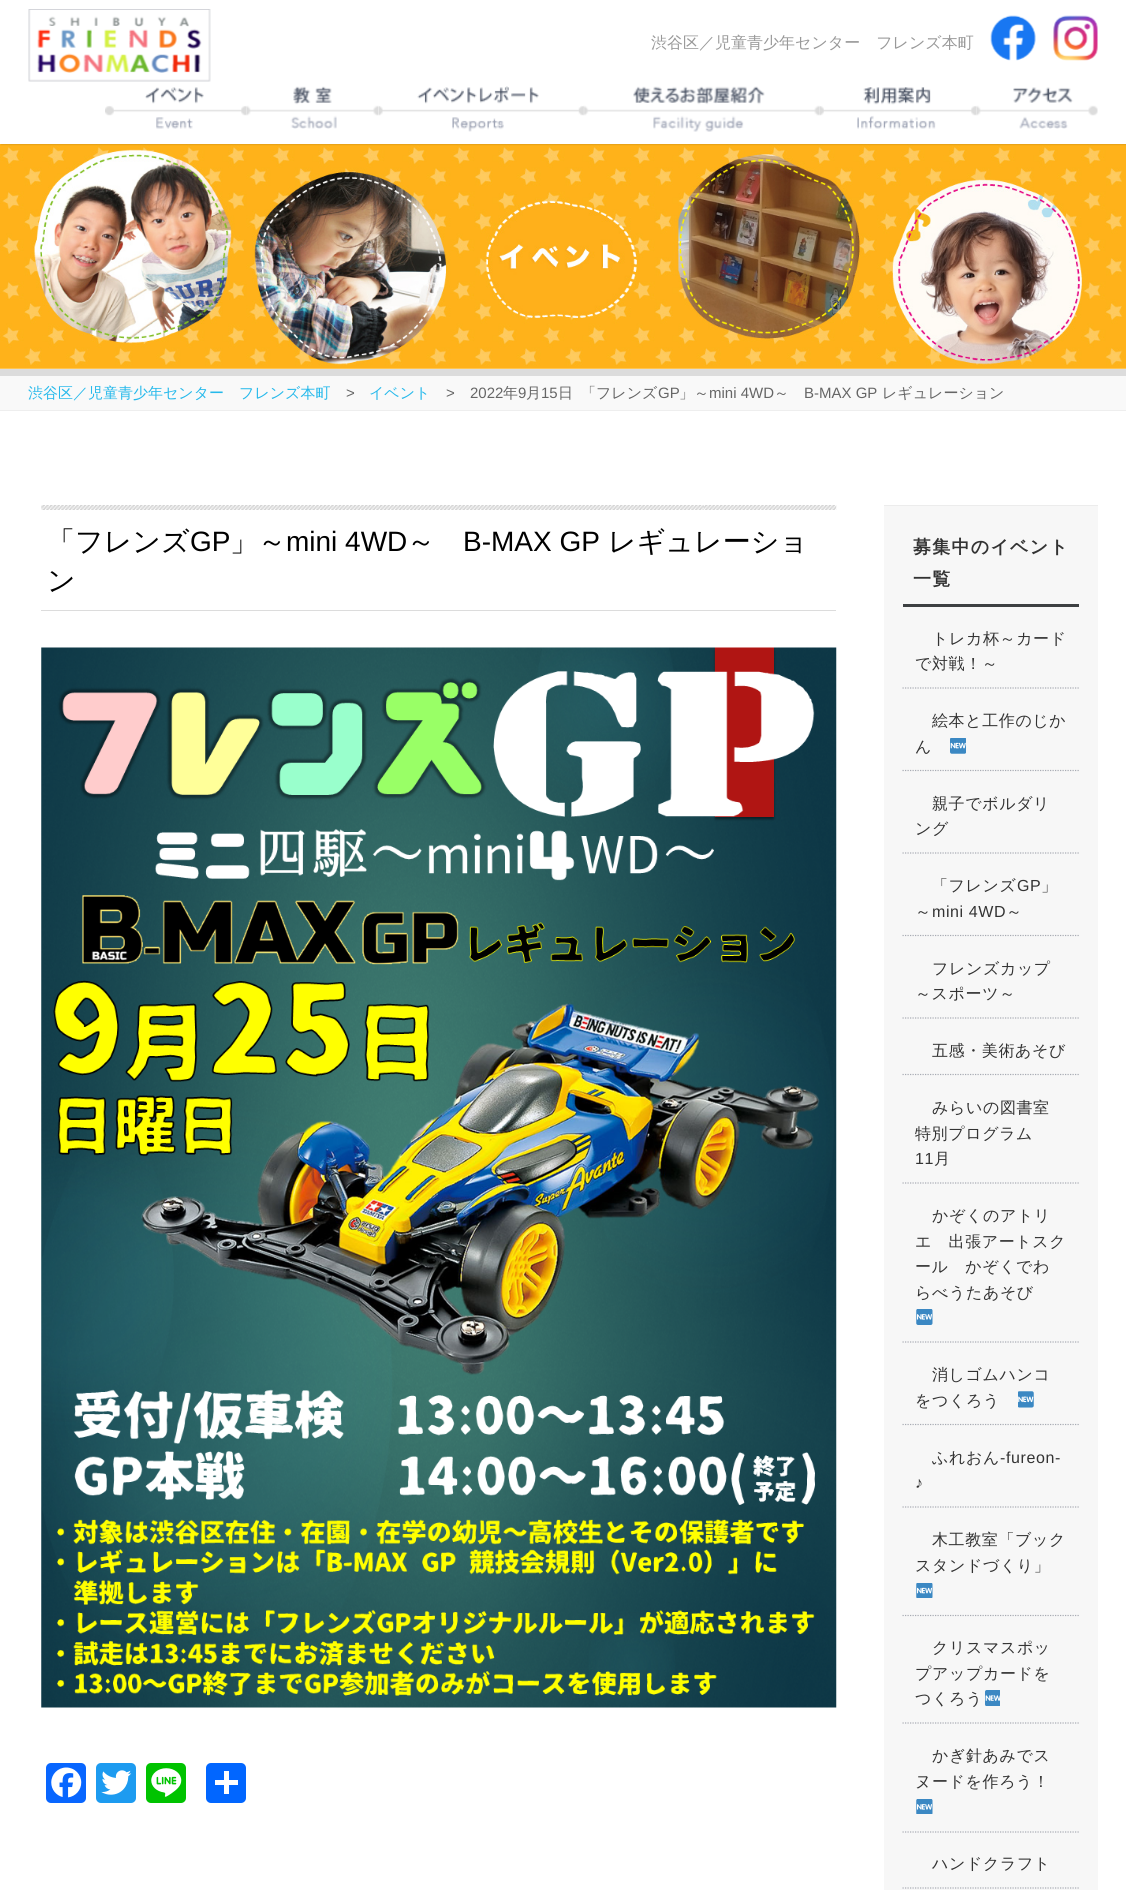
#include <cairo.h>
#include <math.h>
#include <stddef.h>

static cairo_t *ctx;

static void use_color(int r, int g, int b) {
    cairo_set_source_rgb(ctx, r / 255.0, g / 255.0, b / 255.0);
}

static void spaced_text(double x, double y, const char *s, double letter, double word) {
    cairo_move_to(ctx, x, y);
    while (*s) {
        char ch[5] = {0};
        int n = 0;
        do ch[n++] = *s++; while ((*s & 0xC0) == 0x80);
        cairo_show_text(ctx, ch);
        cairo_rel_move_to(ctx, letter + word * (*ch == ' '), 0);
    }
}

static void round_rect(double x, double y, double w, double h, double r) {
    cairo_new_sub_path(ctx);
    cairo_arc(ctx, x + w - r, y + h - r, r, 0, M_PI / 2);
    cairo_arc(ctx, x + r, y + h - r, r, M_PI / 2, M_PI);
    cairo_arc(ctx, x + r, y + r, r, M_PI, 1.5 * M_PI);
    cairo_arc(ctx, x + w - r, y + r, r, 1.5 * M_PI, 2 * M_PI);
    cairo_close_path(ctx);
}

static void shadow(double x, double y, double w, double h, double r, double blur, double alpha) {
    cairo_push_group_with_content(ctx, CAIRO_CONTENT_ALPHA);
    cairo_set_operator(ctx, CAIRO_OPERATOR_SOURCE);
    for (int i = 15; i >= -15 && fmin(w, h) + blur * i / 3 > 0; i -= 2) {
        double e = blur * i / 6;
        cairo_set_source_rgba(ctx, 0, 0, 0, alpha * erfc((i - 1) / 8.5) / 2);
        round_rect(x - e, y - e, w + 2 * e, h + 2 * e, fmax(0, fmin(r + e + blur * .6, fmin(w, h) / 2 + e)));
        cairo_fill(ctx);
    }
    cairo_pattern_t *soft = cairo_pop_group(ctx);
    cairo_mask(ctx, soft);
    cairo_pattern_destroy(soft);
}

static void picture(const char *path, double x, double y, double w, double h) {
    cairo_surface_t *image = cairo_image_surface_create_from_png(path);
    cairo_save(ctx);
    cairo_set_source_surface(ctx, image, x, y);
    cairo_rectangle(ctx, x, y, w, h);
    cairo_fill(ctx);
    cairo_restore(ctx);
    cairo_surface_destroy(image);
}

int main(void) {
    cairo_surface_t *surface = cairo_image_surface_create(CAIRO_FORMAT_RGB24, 1126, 1890);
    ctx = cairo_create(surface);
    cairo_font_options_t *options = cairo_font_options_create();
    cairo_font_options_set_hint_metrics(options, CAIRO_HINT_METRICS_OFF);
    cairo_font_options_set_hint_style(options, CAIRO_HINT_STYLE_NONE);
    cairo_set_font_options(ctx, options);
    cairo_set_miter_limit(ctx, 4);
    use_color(255, 255, 255);
    cairo_paint(ctx);
    picture("img10.png", 0, 144, 1126, 225);
    use_color(0, 0, 0);
    shadow(1, 1, 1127, 144, 0, 0.5, 0.1);
    use_color(255, 255, 255);
    cairo_rectangle(ctx, 0, 0, 1126, 144);
    cairo_fill(ctx);
    picture("img1.png", 28, 9, 183, 73);
    cairo_select_font_face(ctx, "WenQuanYi Zen Hei Medium", CAIRO_FONT_SLANT_NORMAL, CAIRO_FONT_WEIGHT_NORMAL);
    cairo_set_font_size(ctx, 16);
    use_color(153, 153, 153);
    cairo_move_to(ctx, 651, 48);
    cairo_show_text(ctx, "渋谷区／児童青少年センター　フレンズ本町");
    picture("img2.png", 990, 15, 46, 46);
    picture("img3.png", 1053, 15, 45, 46);
    picture("img4.png", 105, 87, 142, 42);
    picture("img5.png", 246, 86, 134, 43);
    picture("img6.png", 379, 86, 205, 46);
    picture("img7.png", 583, 86, 238, 46);
    picture("img8.png", 820, 87, 157, 42);
    picture("img9.png", 976, 87, 122, 42);
    use_color(220, 220, 220);
    cairo_rectangle(ctx, 0, 369, 1126, 7);
    cairo_fill(ctx);
    use_color(249, 249, 249);
    cairo_rectangle(ctx, 0, 376, 1126, 34);
    cairo_fill(ctx);
    use_color(238, 238, 238);
    cairo_rectangle(ctx, 0, 410, 1126, 1);
    cairo_fill(ctx);
    cairo_set_font_size(ctx, 15);
    use_color(38, 185, 235);
    cairo_move_to(ctx, 28, 398);
    cairo_show_text(ctx, "渋谷区／児童青少年センター　フレンズ本町");
    cairo_select_font_face(ctx, "Liberation Sans", CAIRO_FONT_SLANT_NORMAL, CAIRO_FONT_WEIGHT_NORMAL);
    use_color(102, 102, 102);
    cairo_move_to(ctx, 346, 398);
    cairo_show_text(ctx, ">");
    cairo_select_font_face(ctx, "WenQuanYi Zen Hei Medium", CAIRO_FONT_SLANT_NORMAL, CAIRO_FONT_WEIGHT_NORMAL);
    use_color(38, 185, 235);
    cairo_move_to(ctx, 369, 398);
    cairo_show_text(ctx, "イベント");
    cairo_select_font_face(ctx, "Liberation Sans", CAIRO_FONT_SLANT_NORMAL, CAIRO_FONT_WEIGHT_NORMAL);
    use_color(102, 102, 102);
    cairo_move_to(ctx, 446, 398);
    cairo_show_text(ctx, ">");
    cairo_move_to(ctx, 470, 398);
    cairo_show_text(ctx, "2022");
    cairo_select_font_face(ctx, "WenQuanYi Zen Hei Medium", CAIRO_FONT_SLANT_NORMAL, CAIRO_FONT_WEIGHT_NORMAL);
    cairo_move_to(ctx, 503, 398);
    cairo_show_text(ctx, "年");
    cairo_select_font_face(ctx, "Liberation Sans", CAIRO_FONT_SLANT_NORMAL, CAIRO_FONT_WEIGHT_NORMAL);
    cairo_move_to(ctx, 518, 398);
    cairo_show_text(ctx, "9");
    cairo_select_font_face(ctx, "WenQuanYi Zen Hei Medium", CAIRO_FONT_SLANT_NORMAL, CAIRO_FONT_WEIGHT_NORMAL);
    cairo_move_to(ctx, 526, 398);
    cairo_show_text(ctx, "月");
    cairo_select_font_face(ctx, "Liberation Sans", CAIRO_FONT_SLANT_NORMAL, CAIRO_FONT_WEIGHT_NORMAL);
    cairo_move_to(ctx, 541, 398);
    cairo_show_text(ctx, "15");
    cairo_select_font_face(ctx, "WenQuanYi Zen Hei Medium", CAIRO_FONT_SLANT_NORMAL, CAIRO_FONT_WEIGHT_NORMAL);
    cairo_move_to(ctx, 558, 398);
    cairo_show_text(ctx, "日");
    cairo_move_to(ctx, 581, 398);
    cairo_show_text(ctx, "「フレンズ");
    cairo_select_font_face(ctx, "Liberation Sans", CAIRO_FONT_SLANT_NORMAL, CAIRO_FONT_WEIGHT_NORMAL);
    cairo_move_to(ctx, 658, 398);
    cairo_show_text(ctx, "GP");
    cairo_select_font_face(ctx, "WenQuanYi Zen Hei Medium", CAIRO_FONT_SLANT_NORMAL, CAIRO_FONT_WEIGHT_NORMAL);
    cairo_move_to(ctx, 679, 398);
    cairo_show_text(ctx, "」～");
    cairo_select_font_face(ctx, "Liberation Sans", CAIRO_FONT_SLANT_NORMAL, CAIRO_FONT_WEIGHT_NORMAL);
    cairo_move_to(ctx, 709, 398);
    cairo_show_text(ctx, "mini 4WD");
    cairo_select_font_face(ctx, "WenQuanYi Zen Hei Medium", CAIRO_FONT_SLANT_NORMAL, CAIRO_FONT_WEIGHT_NORMAL);
    cairo_move_to(ctx, 774, 398);
    cairo_show_text(ctx, "～");
    cairo_select_font_face(ctx, "Liberation Sans", CAIRO_FONT_SLANT_NORMAL, CAIRO_FONT_WEIGHT_NORMAL);
    cairo_move_to(ctx, 804, 398);
    cairo_show_text(ctx, "B-MAX GP");
    cairo_select_font_face(ctx, "WenQuanYi Zen Hei Medium", CAIRO_FONT_SLANT_NORMAL, CAIRO_FONT_WEIGHT_NORMAL);
    cairo_move_to(ctx, 882, 398);
    cairo_show_text(ctx, "レギュレーション");
    picture("img11.png", 41, 505, 796, 5);
    use_color(220, 220, 220);
    cairo_rectangle(ctx, 41, 610, 795, 1);
    cairo_fill(ctx);
    cairo_set_font_size(ctx, 28);
    use_color(0, 0, 0);
    cairo_move_to(ctx, 47, 551);
    cairo_show_text(ctx, "「フレンズ");
    cairo_select_font_face(ctx, "Liberation Sans", CAIRO_FONT_SLANT_NORMAL, CAIRO_FONT_WEIGHT_NORMAL);
    cairo_move_to(ctx, 190, 551);
    cairo_show_text(ctx, "GP");
    cairo_select_font_face(ctx, "WenQuanYi Zen Hei Medium", CAIRO_FONT_SLANT_NORMAL, CAIRO_FONT_WEIGHT_NORMAL);
    cairo_move_to(ctx, 230, 551);
    cairo_show_text(ctx, "」～");
    cairo_select_font_face(ctx, "Liberation Sans", CAIRO_FONT_SLANT_NORMAL, CAIRO_FONT_WEIGHT_NORMAL);
    cairo_move_to(ctx, 286, 551);
    cairo_show_text(ctx, "mini 4WD");
    cairo_select_font_face(ctx, "WenQuanYi Zen Hei Medium", CAIRO_FONT_SLANT_NORMAL, CAIRO_FONT_WEIGHT_NORMAL);
    cairo_move_to(ctx, 407, 551);
    cairo_show_text(ctx, "～");
    cairo_select_font_face(ctx, "Liberation Sans", CAIRO_FONT_SLANT_NORMAL, CAIRO_FONT_WEIGHT_NORMAL);
    cairo_move_to(ctx, 463, 551);
    cairo_show_text(ctx, "B-MAX GP");
    cairo_select_font_face(ctx, "WenQuanYi Zen Hei Medium", CAIRO_FONT_SLANT_NORMAL, CAIRO_FONT_WEIGHT_NORMAL);
    cairo_move_to(ctx, 608, 551);
    cairo_show_text(ctx, "レギュレーショ");
    cairo_move_to(ctx, 47, 590);
    cairo_show_text(ctx, "ン");
    picture("img12.png", 41, 647, 796, 1061);
    use_color(8, 102, 255);
    round_rect(46, 1763, 40, 40, 5);
    cairo_fill(ctx);
    picture("img13.png", 51, 1767, 31, 31);
    use_color(29, 155, 240);
    round_rect(96, 1763, 40, 40, 5);
    cairo_fill(ctx);
    picture("img14.png", 101, 1770, 31, 25);
    use_color(0, 195, 0);
    round_rect(146, 1763, 40, 40, 5);
    cairo_fill(ctx);
    picture("img15.png", 151, 1768, 31, 29);
    use_color(1, 102, 255);
    round_rect(206, 1763, 40, 40, 5);
    cairo_fill(ctx);
    use_color(255, 255, 255);
    cairo_rectangle(ctx, 224, 1771, 5, 23);
    cairo_fill(ctx);
    cairo_rectangle(ctx, 215, 1780, 23, 5);
    cairo_fill(ctx);
    use_color(247, 247, 247);
    cairo_rectangle(ctx, 884, 506, 214, 1384);
    cairo_fill(ctx);
    use_color(236, 236, 236);
    cairo_rectangle(ctx, 884, 505, 214, 1);
    cairo_fill(ctx);
    use_color(61, 64, 66);
    cairo_rectangle(ctx, 903, 604, 176, 3);
    cairo_fill(ctx);
    cairo_select_font_face(ctx, "WenQuanYi Zen Hei", CAIRO_FONT_SLANT_NORMAL, CAIRO_FONT_WEIGHT_BOLD);
    cairo_set_font_size(ctx, 18);
    use_color(51, 51, 51);
    spaced_text(913, 553, "募集中のイベント", 1.25, 0);
    spaced_text(913, 585, "一覧", 1.25, 0);
    cairo_new_path(ctx);
    cairo_move_to(ctx, 902.5, 688);
    cairo_line_to(ctx, 1079, 688);
    use_color(168, 171, 179);
    cairo_set_line_width(ctx, 1.2);
    cairo_set_dash(ctx, (double[]){1.25, 1.25}, 2, 0);
    cairo_stroke(ctx);
    cairo_select_font_face(ctx, "WenQuanYi Zen Hei Medium", CAIRO_FONT_SLANT_NORMAL, CAIRO_FONT_WEIGHT_NORMAL);
    cairo_set_font_size(ctx, 16);
    use_color(51, 51, 51);
    spaced_text(932, 644, "トレカ杯～カード", 0.6, 0);
    spaced_text(915, 669, "で対戦！～", 0.6, 0);
    cairo_new_path(ctx);
    cairo_move_to(ctx, 902.5, 770.5);
    cairo_line_to(ctx, 1079, 770.5);
    use_color(168, 171, 179);
    cairo_stroke(ctx);
    use_color(51, 51, 51);
    spaced_text(932, 726, "絵本と工作のじか", 0.6, 0);
    spaced_text(915, 752, "ん", 0.6, 0);
    picture("img16.png", 950, 738, 16, 16);
    cairo_new_path(ctx);
    cairo_move_to(ctx, 902.5, 853);
    cairo_line_to(ctx, 1079, 853);
    use_color(168, 171, 179);
    cairo_stroke(ctx);
    use_color(51, 51, 51);
    spaced_text(932, 809, "親子でボルダリ", 0.6, 0);
    spaced_text(915, 834, "ング", 0.6, 0);
    cairo_new_path(ctx);
    cairo_move_to(ctx, 902.5, 935.5);
    cairo_line_to(ctx, 1079, 935.5);
    use_color(168, 171, 179);
    cairo_stroke(ctx);
    use_color(51, 51, 51);
    spaced_text(932, 891, "「フレンズ", 0.6, 0);
    cairo_select_font_face(ctx, "Liberation Sans", CAIRO_FONT_SLANT_NORMAL, CAIRO_FONT_WEIGHT_NORMAL);
    spaced_text(1017, 891, "GP", 0.6, 0);
    cairo_select_font_face(ctx, "WenQuanYi Zen Hei Medium", CAIRO_FONT_SLANT_NORMAL, CAIRO_FONT_WEIGHT_NORMAL);
    spaced_text(1041, 891, "」", 0.6, 0);
    spaced_text(915, 917, "～", 0.6, 0);
    cairo_select_font_face(ctx, "Liberation Sans", CAIRO_FONT_SLANT_NORMAL, CAIRO_FONT_WEIGHT_NORMAL);
    spaced_text(932, 917, "mini 4WD", 0.6, 0);
    cairo_select_font_face(ctx, "WenQuanYi Zen Hei Medium", CAIRO_FONT_SLANT_NORMAL, CAIRO_FONT_WEIGHT_NORMAL);
    spaced_text(1006, 917, "～", 0.6, 0);
    cairo_new_path(ctx);
    cairo_move_to(ctx, 902.5, 1018);
    cairo_line_to(ctx, 1079, 1018);
    use_color(168, 171, 179);
    cairo_stroke(ctx);
    use_color(51, 51, 51);
    spaced_text(932, 974, "フレンズカップ", 0.6, 0);
    spaced_text(915, 999, "～スポーツ～", 0.6, 0);
    cairo_new_path(ctx);
    cairo_move_to(ctx, 902.5, 1074.5);
    cairo_line_to(ctx, 1079, 1074.5);
    use_color(168, 171, 179);
    cairo_stroke(ctx);
    use_color(51, 51, 51);
    spaced_text(932, 1056, "五感・美術あそび", 0.6, 0);
    cairo_new_path(ctx);
    cairo_move_to(ctx, 902.5, 1183);
    cairo_line_to(ctx, 1079, 1183);
    use_color(168, 171, 179);
    cairo_stroke(ctx);
    use_color(51, 51, 51);
    spaced_text(932, 1113, "みらいの図書室", 0.6, 0);
    spaced_text(915, 1139, "特別プログラム", 0.6, 0);
    cairo_select_font_face(ctx, "Liberation Sans", CAIRO_FONT_SLANT_NORMAL, CAIRO_FONT_WEIGHT_NORMAL);
    spaced_text(915, 1164, "11", 0.6, 0);
    cairo_select_font_face(ctx, "WenQuanYi Zen Hei Medium", CAIRO_FONT_SLANT_NORMAL, CAIRO_FONT_WEIGHT_NORMAL);
    spaced_text(934, 1164, "月", 0.6, 0);
    cairo_new_path(ctx);
    cairo_move_to(ctx, 902.5, 1342);
    cairo_line_to(ctx, 1079, 1342);
    use_color(168, 171, 179);
    cairo_stroke(ctx);
    use_color(51, 51, 51);
    spaced_text(932, 1221, "かぞくのアトリ", 0.6, 0);
    spaced_text(915, 1247, "エ　出張アートスク", 0.6, 0);
    spaced_text(915, 1272, "ール　かぞくでわ", 0.6, 0);
    spaced_text(915, 1298, "らべうたあそび", 0.6, 0);
    picture("img17.png", 916, 1309, 17, 16);
    cairo_new_path(ctx);
    cairo_move_to(ctx, 902.5, 1424.5);
    cairo_line_to(ctx, 1079, 1424.5);
    use_color(168, 171, 179);
    cairo_stroke(ctx);
    use_color(51, 51, 51);
    spaced_text(932, 1380, "消しゴムハンコ", 0.6, 0);
    spaced_text(915, 1406, "をつくろう", 0.6, 0);
    picture("img18.png", 1018, 1391, 16, 17);
    cairo_new_path(ctx);
    cairo_move_to(ctx, 902.5, 1507);
    cairo_line_to(ctx, 1079, 1507);
    use_color(168, 171, 179);
    cairo_stroke(ctx);
    use_color(51, 51, 51);
    spaced_text(932, 1463, "ふれおん", 0.6, 0);
    cairo_select_font_face(ctx, "Liberation Sans", CAIRO_FONT_SLANT_NORMAL, CAIRO_FONT_WEIGHT_NORMAL);
    spaced_text(1000, 1463, "-fureon-", 0.6, 0);
    spaced_text(915, 1488, "♪", 0.6, 0);
    cairo_new_path(ctx);
    cairo_move_to(ctx, 902.5, 1615.5);
    cairo_line_to(ctx, 1079, 1615.5);
    use_color(168, 171, 179);
    cairo_stroke(ctx);
    cairo_select_font_face(ctx, "WenQuanYi Zen Hei Medium", CAIRO_FONT_SLANT_NORMAL, CAIRO_FONT_WEIGHT_NORMAL);
    use_color(51, 51, 51);
    spaced_text(932, 1545, "木工教室「ブック", 0.6, 0);
    spaced_text(915, 1571, "スタンドづくり」", 0.6, 0);
    picture("img19.png", 916, 1583, 17, 15);
    cairo_new_path(ctx);
    cairo_move_to(ctx, 902.5, 1723);
    cairo_line_to(ctx, 1079, 1723);
    use_color(168, 171, 179);
    cairo_stroke(ctx);
    use_color(51, 51, 51);
    spaced_text(932, 1653, "クリスマスポッ", 0.6, 0);
    spaced_text(915, 1679, "プアップカードを", 0.6, 0);
    spaced_text(915, 1704, "つくろう", 0.6, 0);
    picture("img20.png", 985, 1690, 15, 16);
    cairo_new_path(ctx);
    cairo_move_to(ctx, 902.5, 1832);
    cairo_line_to(ctx, 1079, 1832);
    use_color(168, 171, 179);
    cairo_stroke(ctx);
    use_color(51, 51, 51);
    spaced_text(932, 1761, "かぎ針あみでス", 0.6, 0);
    spaced_text(915, 1787, "ヌードを作ろう！", 0.6, 0);
    picture("img21.png", 916, 1799, 17, 15);
    cairo_new_path(ctx);
    cairo_move_to(ctx, 902.5, 1888);
    cairo_line_to(ctx, 1079, 1888);
    use_color(168, 171, 179);
    cairo_stroke(ctx);
    use_color(51, 51, 51);
    spaced_text(932, 1869, "ハンドクラフト", 0.6, 0);
    cairo_surface_write_to_png(surface, "result.png");
    cairo_font_options_destroy(options);
    cairo_destroy(ctx);
    cairo_surface_destroy(surface);
    return 0;
}
